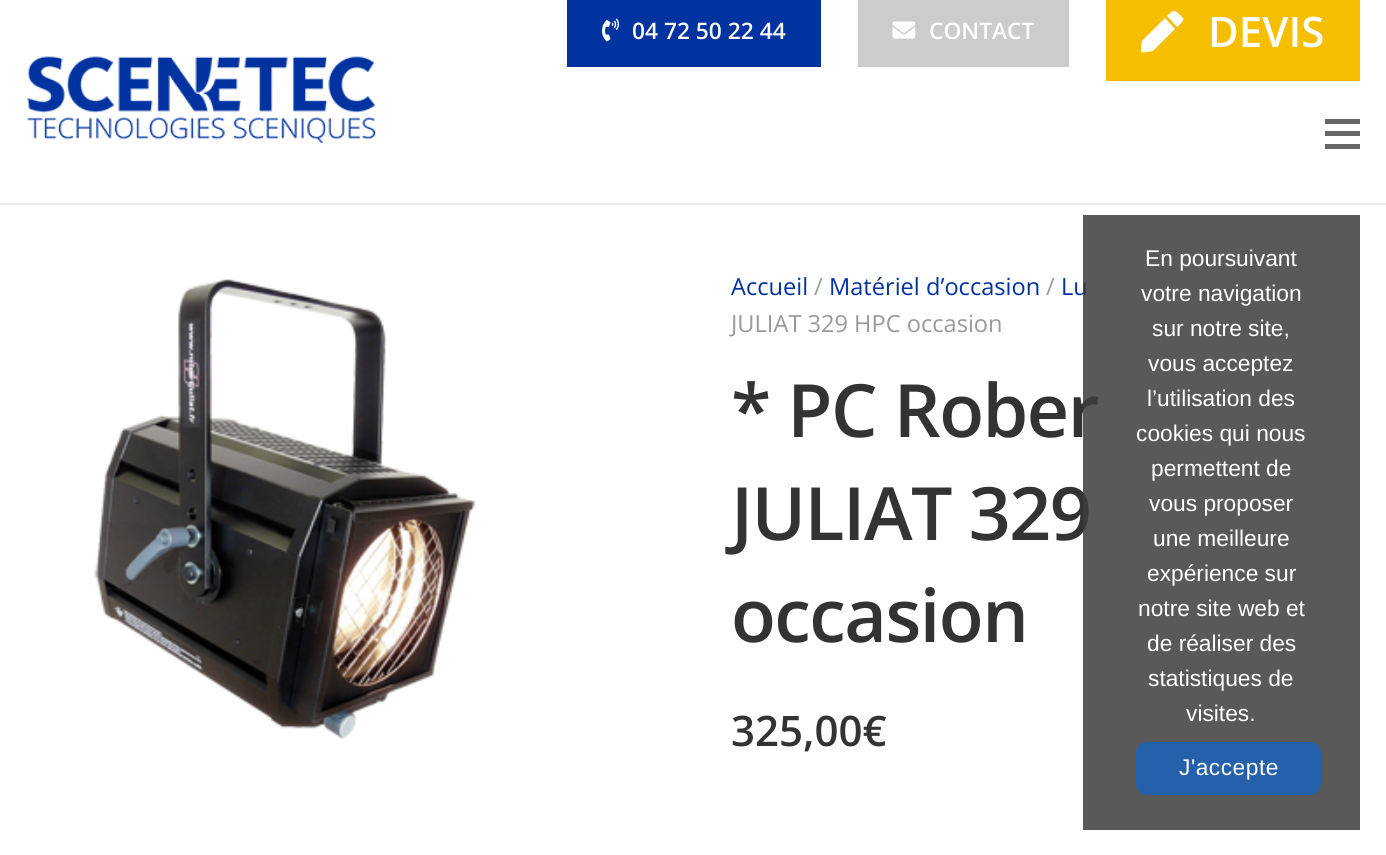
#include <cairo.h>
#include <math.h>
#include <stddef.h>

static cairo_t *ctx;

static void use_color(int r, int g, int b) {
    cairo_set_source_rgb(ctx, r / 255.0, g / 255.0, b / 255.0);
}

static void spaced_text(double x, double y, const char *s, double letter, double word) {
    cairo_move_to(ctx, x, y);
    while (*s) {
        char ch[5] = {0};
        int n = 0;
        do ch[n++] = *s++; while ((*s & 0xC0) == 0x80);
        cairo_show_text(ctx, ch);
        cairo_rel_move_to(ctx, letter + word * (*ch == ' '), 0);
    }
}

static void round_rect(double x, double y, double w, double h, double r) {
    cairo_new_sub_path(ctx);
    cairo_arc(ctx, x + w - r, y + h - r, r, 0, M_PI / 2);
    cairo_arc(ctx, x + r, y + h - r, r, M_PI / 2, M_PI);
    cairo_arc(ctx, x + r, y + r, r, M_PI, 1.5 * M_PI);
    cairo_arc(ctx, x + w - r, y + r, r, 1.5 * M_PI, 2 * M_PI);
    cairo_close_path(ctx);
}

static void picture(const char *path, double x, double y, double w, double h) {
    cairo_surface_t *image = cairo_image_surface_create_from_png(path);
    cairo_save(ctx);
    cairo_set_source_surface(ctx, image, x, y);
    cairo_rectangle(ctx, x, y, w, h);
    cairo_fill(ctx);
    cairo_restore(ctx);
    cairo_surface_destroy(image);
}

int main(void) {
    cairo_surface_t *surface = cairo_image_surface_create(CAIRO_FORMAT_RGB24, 1386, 855);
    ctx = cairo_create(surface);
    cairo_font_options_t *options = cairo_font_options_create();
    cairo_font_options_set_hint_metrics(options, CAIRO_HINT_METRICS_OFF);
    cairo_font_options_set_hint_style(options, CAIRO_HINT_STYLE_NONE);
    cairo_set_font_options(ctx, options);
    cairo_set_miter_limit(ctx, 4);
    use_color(255, 255, 255);
    cairo_paint(ctx);
    use_color(0, 50, 160);
    cairo_rectangle(ctx, 567, 0, 254, 67);
    cairo_fill(ctx);
    picture("img1.png", 602, 18, 18, 24);
    cairo_select_font_face(ctx, "Open Sans SemiBold", CAIRO_FONT_SLANT_NORMAL, CAIRO_FONT_WEIGHT_NORMAL);
    cairo_set_font_size(ctx, 22.75);
    use_color(255, 255, 255);
    cairo_move_to(ctx, 632, 39);
    cairo_show_text(ctx, "04 72 50 22 44");
    use_color(204, 204, 204);
    cairo_rectangle(ctx, 858, 0, 211, 67);
    cairo_fill(ctx);
    picture("img2.png", 892, 21, 24, 18);
    use_color(255, 255, 255);
    cairo_move_to(ctx, 929, 39);
    cairo_show_text(ctx, "CONTACT");
    use_color(246, 190, 0);
    cairo_rectangle(ctx, 1106, 0, 254, 81);
    cairo_fill(ctx);
    use_color(255, 255, 255);
    cairo_new_path(ctx);
    cairo_move_to(ctx, 1165, 18);
    cairo_line_to(ctx, 1175, 29);
    cairo_line_to(ctx, 1153, 51);
    cairo_curve_to(ctx, 1139, 53, 1140, 55, 1142, 41);
    cairo_close_path(ctx);
    cairo_move_to(ctx, 1182, 17);
    cairo_curve_to(ctx, 1174, 9, 1174, 9, 1167, 16);
    cairo_line_to(ctx, 1177, 27);
    cairo_curve_to(ctx, 1179, 25, 1186, 20, 1182, 17);
    cairo_close_path(ctx);
    cairo_fill(ctx);
    cairo_set_font_size(ctx, 42);
    cairo_move_to(ctx, 1208, 47);
    cairo_show_text(ctx, "DEVIS");
    use_color(235, 235, 235);
    cairo_rectangle(ctx, 0, 203, 1386, 2);
    cairo_fill(ctx);
    picture("img3.png", 27, 56, 349, 87);
    use_color(102, 102, 102);
    cairo_rectangle(ctx, 1325, 131, 35, 5);
    cairo_fill(ctx);
    cairo_rectangle(ctx, 1325, 119, 35, 5);
    cairo_fill(ctx);
    cairo_rectangle(ctx, 1325, 144, 35, 5);
    cairo_fill(ctx);
    picture("img4.png", 94, 278, 383, 461);
    cairo_select_font_face(ctx, "Open Sans", CAIRO_FONT_SLANT_NORMAL, CAIRO_FONT_WEIGHT_NORMAL);
    cairo_set_font_size(ctx, 23.6);
    use_color(0, 50, 160);
    cairo_move_to(ctx, 731, 295);
    cairo_show_text(ctx, "Accueil");
    use_color(153, 153, 153);
    cairo_move_to(ctx, 814, 295);
    cairo_show_text(ctx, "/");
    use_color(0, 50, 160);
    cairo_move_to(ctx, 829, 295);
    cairo_show_text(ctx, "Matériel d’occasion");
    use_color(153, 153, 153);
    cairo_move_to(ctx, 1046, 295);
    cairo_show_text(ctx, "/");
    use_color(0, 50, 160);
    cairo_move_to(ctx, 1061, 295);
    cairo_show_text(ctx, "Lu");
    use_color(153, 153, 153);
    cairo_move_to(ctx, 731, 332);
    cairo_show_text(ctx, "JULIAT 329 HPC occasion");
    cairo_select_font_face(ctx, "Open Sans SemiBold", CAIRO_FONT_SLANT_NORMAL, CAIRO_FONT_WEIGHT_NORMAL);
    cairo_set_font_size(ctx, 73.5);
    use_color(51, 51, 51);
    spaced_text(731, 437, "* PC Rober", -1.5, 0);
    spaced_text(731, 540, "JULIAT 329", -1.5, 0);
    spaced_text(731, 642, "occasion", -1.5, 0);
    cairo_set_font_size(ctx, 42);
    cairo_move_to(ctx, 731, 746);
    cairo_show_text(ctx, "325,00€");
    cairo_set_source_rgba(ctx, 0.235, 0.235, 0.235, 0.85);
    cairo_rectangle(ctx, 1083, 215, 277, 615);
    cairo_fill(ctx);
    cairo_select_font_face(ctx, "Liberation Sans", CAIRO_FONT_SLANT_NORMAL, CAIRO_FONT_WEIGHT_NORMAL);
    cairo_set_font_size(ctx, 22.75);
    use_color(255, 255, 255);
    cairo_move_to(ctx, 1145, 266);
    cairo_show_text(ctx, "En poursuivant");
    cairo_move_to(ctx, 1141, 301);
    cairo_show_text(ctx, "votre navigation");
    cairo_move_to(ctx, 1152, 336);
    cairo_show_text(ctx, "sur notre site,");
    cairo_move_to(ctx, 1148, 371);
    cairo_show_text(ctx, "vous acceptez");
    cairo_move_to(ctx, 1147, 406);
    cairo_show_text(ctx, "l’utilisation des");
    cairo_move_to(ctx, 1136, 441);
    cairo_show_text(ctx, "cookies qui nous");
    cairo_move_to(ctx, 1151, 476);
    cairo_show_text(ctx, "permettent de");
    cairo_move_to(ctx, 1149, 511);
    cairo_show_text(ctx, "vous proposer");
    cairo_move_to(ctx, 1153, 546);
    cairo_show_text(ctx, "une meilleure");
    cairo_move_to(ctx, 1147, 581);
    cairo_show_text(ctx, "expérience sur");
    cairo_move_to(ctx, 1138, 616);
    cairo_show_text(ctx, "notre site web et");
    cairo_move_to(ctx, 1147, 651);
    cairo_show_text(ctx, "de réaliser des");
    cairo_move_to(ctx, 1148, 686);
    cairo_show_text(ctx, "statistiques de");
    cairo_move_to(ctx, 1186, 721);
    cairo_show_text(ctx, "visites.");
    use_color(37, 97, 170);
    round_rect(1136, 742, 185, 53, 11);
    cairo_fill(ctx);
    use_color(255, 255, 255);
    spaced_text(1179, 775, "J'accepte", 0.5, 0);
    cairo_surface_write_to_png(surface, "result.png");
    cairo_font_options_destroy(options);
    cairo_destroy(ctx);
    cairo_surface_destroy(surface);
    return 0;
}
